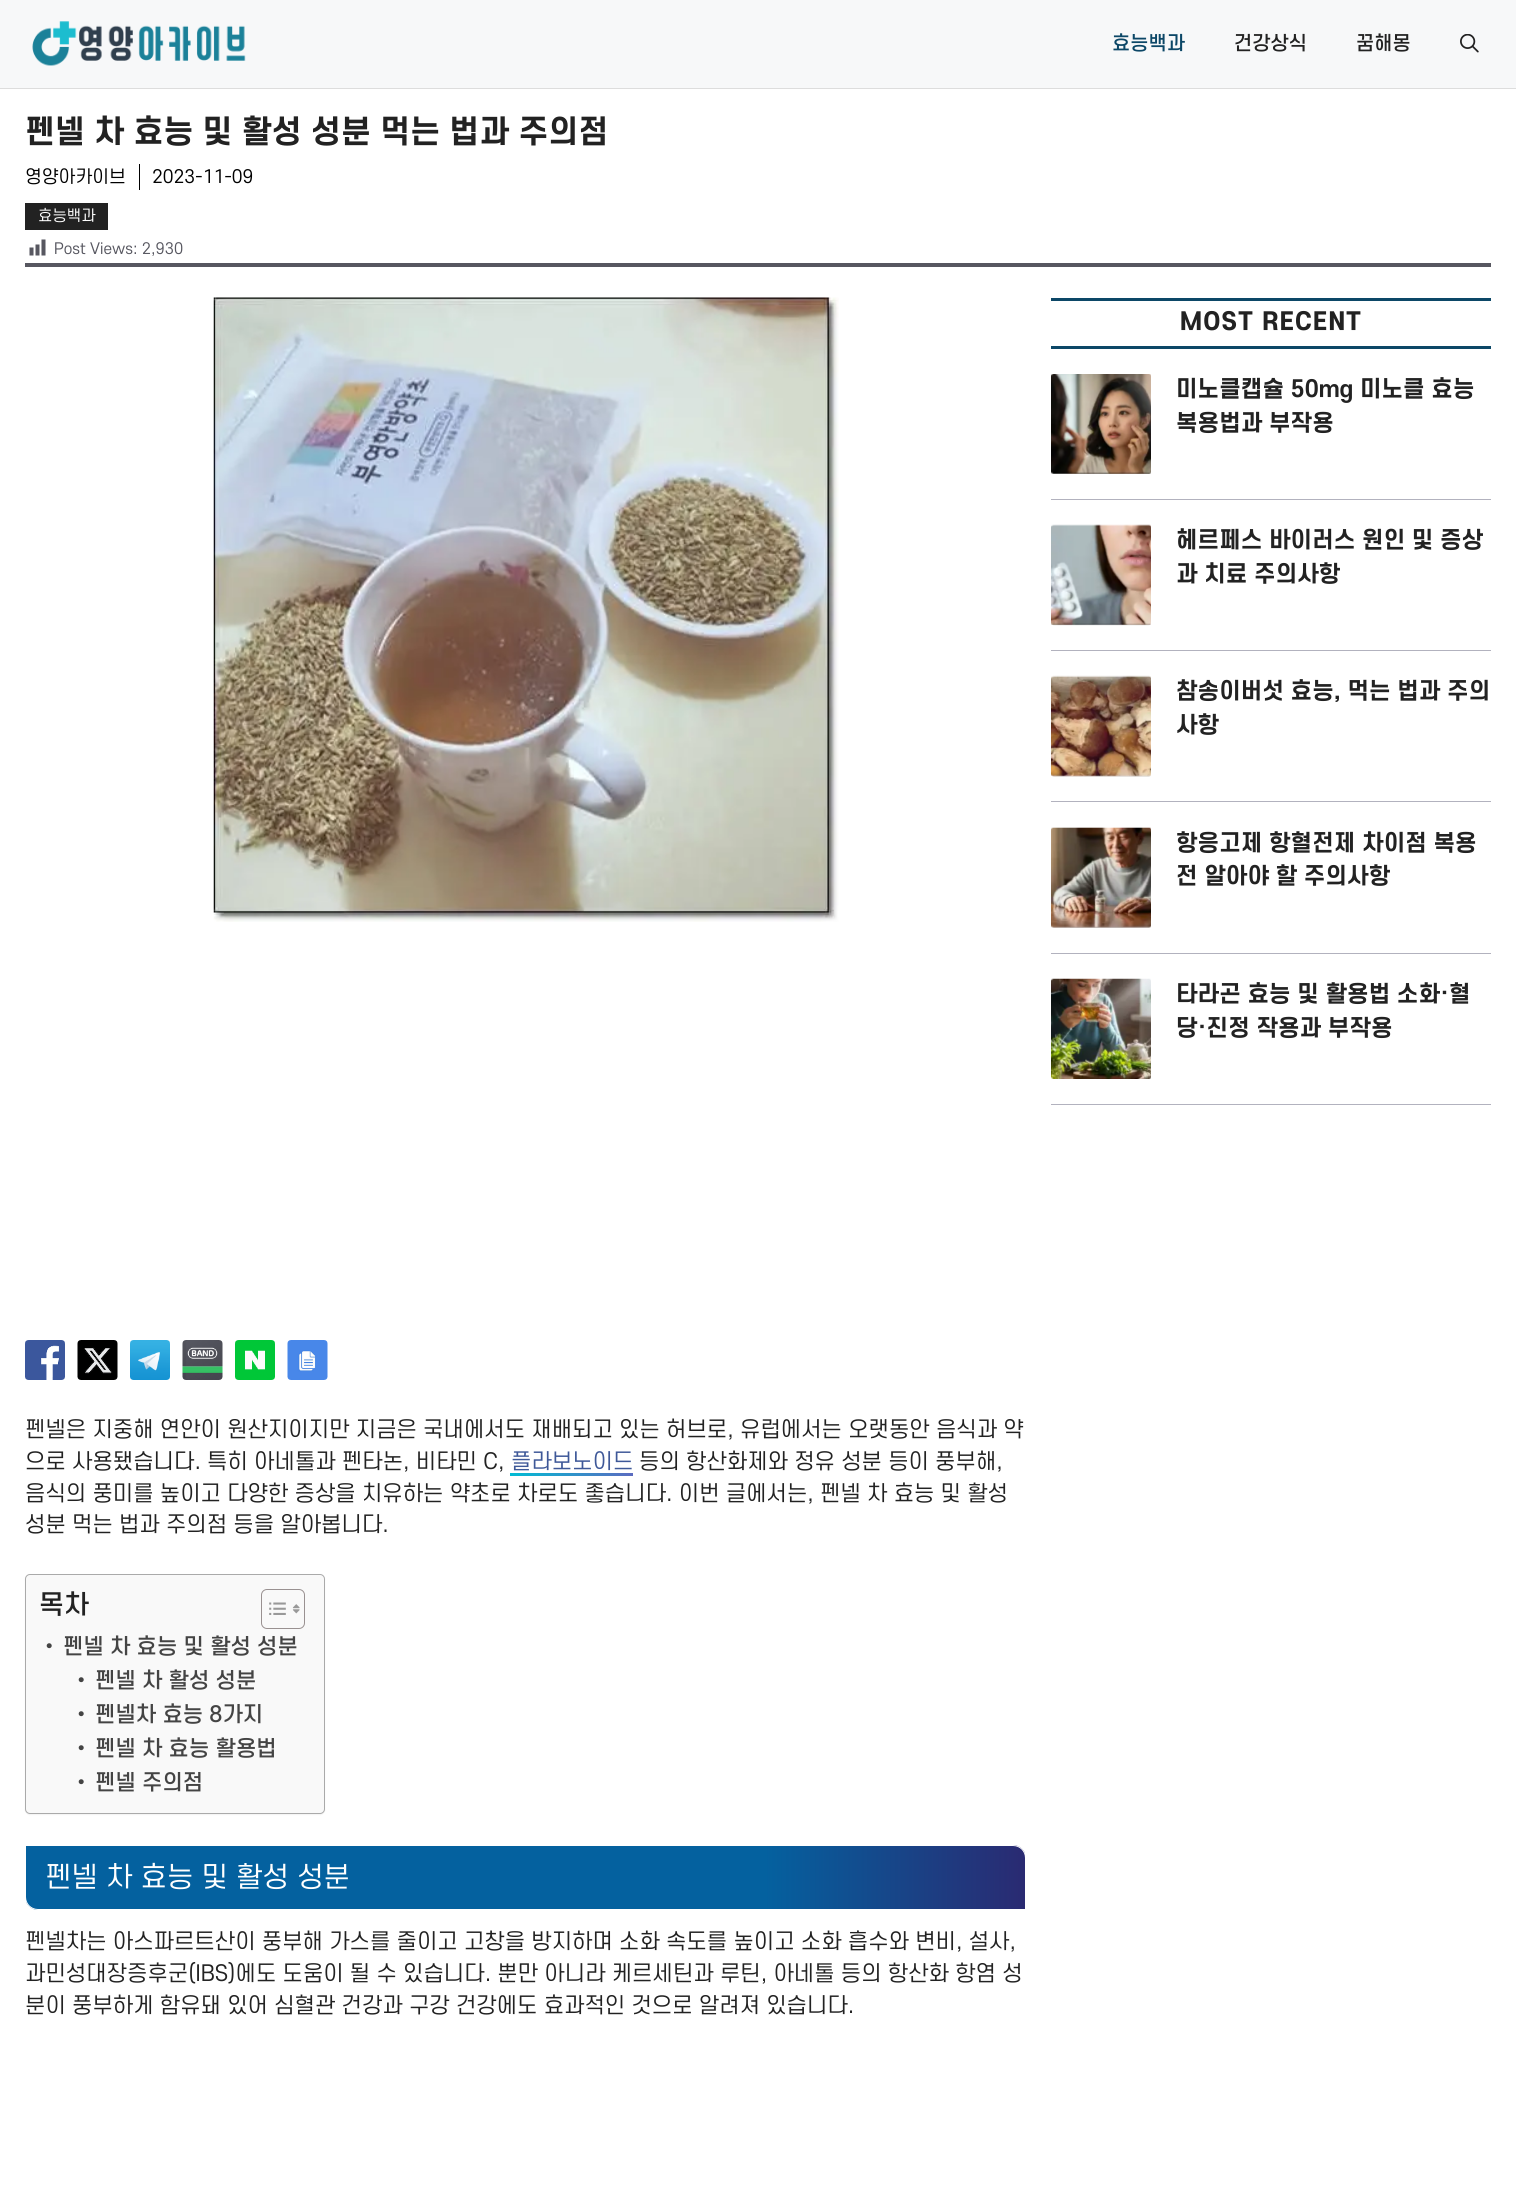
#include <cairo.h>
#include <math.h>
#include <stddef.h>

static cairo_t *ctx;

static void use_color(int r, int g, int b) {
    cairo_set_source_rgb(ctx, r / 255.0, g / 255.0, b / 255.0);
}

static void spaced_text(double x, double y, const char *s, double letter, double word) {
    cairo_move_to(ctx, x, y);
    while (*s) {
        char ch[5] = {0};
        int n = 0;
        do ch[n++] = *s++; while ((*s & 0xC0) == 0x80);
        cairo_show_text(ctx, ch);
        cairo_rel_move_to(ctx, letter + word * (*ch == ' '), 0);
    }
}

static void round_rect(double x, double y, double w, double h, double r) {
    cairo_new_sub_path(ctx);
    cairo_arc(ctx, x + w - r, y + h - r, r, 0, M_PI / 2);
    cairo_arc(ctx, x + r, y + h - r, r, M_PI / 2, M_PI);
    cairo_arc(ctx, x + r, y + r, r, M_PI, 1.5 * M_PI);
    cairo_arc(ctx, x + w - r, y + r, r, 1.5 * M_PI, 2 * M_PI);
    cairo_close_path(ctx);
}

static void shadow(double x, double y, double w, double h, double r, double blur, double alpha) {
    cairo_push_group_with_content(ctx, CAIRO_CONTENT_ALPHA);
    cairo_set_operator(ctx, CAIRO_OPERATOR_SOURCE);
    for (int i = 15; i >= -15 && fmin(w, h) + blur * i / 3 > 0; i -= 2) {
        double e = blur * i / 6;
        cairo_set_source_rgba(ctx, 0, 0, 0, alpha * erfc((i - 1) / 8.5) / 2);
        round_rect(x - e, y - e, w + 2 * e, h + 2 * e, fmax(0, fmin(r + e + blur * .6, fmin(w, h) / 2 + e)));
        cairo_fill(ctx);
    }
    cairo_pattern_t *soft = cairo_pop_group(ctx);
    cairo_mask(ctx, soft);
    cairo_pattern_destroy(soft);
}

static void picture(const char *path, double x, double y, double w, double h) {
    cairo_surface_t *image = cairo_image_surface_create_from_png(path);
    cairo_save(ctx);
    cairo_set_source_surface(ctx, image, x, y);
    cairo_rectangle(ctx, x, y, w, h);
    cairo_fill(ctx);
    cairo_restore(ctx);
    cairo_surface_destroy(image);
}

int main(void) {
    cairo_surface_t *surface = cairo_image_surface_create(CAIRO_FORMAT_RGB24, 1516, 2210);
    ctx = cairo_create(surface);
    cairo_font_options_t *options = cairo_font_options_create();
    cairo_font_options_set_hint_metrics(options, CAIRO_HINT_METRICS_OFF);
    cairo_font_options_set_hint_style(options, CAIRO_HINT_STYLE_NONE);
    cairo_set_font_options(ctx, options);
    cairo_set_miter_limit(ctx, 4);
    cairo_pattern_t *gradient;
    use_color(255, 255, 255);
    cairo_paint(ctx);
    use_color(247, 248, 249);
    cairo_rectangle(ctx, 0, 0, 1516, 88);
    cairo_fill(ctx);
    use_color(221, 221, 221);
    cairo_rectangle(ctx, 0, 88, 1516, 1);
    cairo_fill(ctx);
    picture("img1.png", 32, 21, 214, 45);
    cairo_select_font_face(ctx, "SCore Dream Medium", CAIRO_FONT_SLANT_NORMAL, CAIRO_FONT_WEIGHT_NORMAL);
    cairo_set_font_size(ctx, 19);
    use_color(12, 71, 103);
    cairo_move_to(ctx, 1112, 50);
    cairo_show_text(ctx, "효능백과");
    use_color(34, 34, 34);
    cairo_move_to(ctx, 1234, 50);
    cairo_show_text(ctx, "건강상식");
    cairo_move_to(ctx, 1356, 50);
    cairo_show_text(ctx, "꿈해몽");
    picture("img2.png", 1460, 34, 19, 19);
    cairo_select_font_face(ctx, "SCore Dream", CAIRO_FONT_SLANT_NORMAL, CAIRO_FONT_WEIGHT_BOLD);
    cairo_set_font_size(ctx, 31.25);
    cairo_move_to(ctx, 25, 143);
    cairo_show_text(ctx, "펜넬 차 효능 및 활성 성분 먹는 법과 주의점");
    use_color(0, 0, 0);
    cairo_rectangle(ctx, 139, 164, 1, 26);
    cairo_fill(ctx);
    cairo_select_font_face(ctx, "SCore Dream", CAIRO_FONT_SLANT_NORMAL, CAIRO_FONT_WEIGHT_NORMAL);
    cairo_set_font_size(ctx, 17.5);
    cairo_move_to(ctx, 25, 183);
    cairo_show_text(ctx, "영양아카이브");
    cairo_move_to(ctx, 152, 183);
    cairo_show_text(ctx, "2023-11-09");
    use_color(34, 34, 34);
    cairo_rectangle(ctx, 25, 203, 83, 27);
    cairo_fill(ctx);
    cairo_set_font_size(ctx, 15);
    use_color(255, 255, 255);
    cairo_move_to(ctx, 38, 221);
    cairo_show_text(ctx, "효능백과");
    picture("img3.png", 29, 239, 17, 17);
    cairo_set_font_size(ctx, 14.9);
    use_color(87, 87, 96);
    cairo_move_to(ctx, 54, 254);
    cairo_show_text(ctx, "Post Views: 2,930");
    cairo_rectangle(ctx, 25, 263, 1466, 4);
    cairo_fill(ctx);
    use_color(12, 71, 103);
    cairo_rectangle(ctx, 1051, 298, 440, 3);
    cairo_fill(ctx);
    cairo_rectangle(ctx, 1051, 346, 440, 3);
    cairo_fill(ctx);
    cairo_select_font_face(ctx, "SCore Dream ExtraBold", CAIRO_FONT_SLANT_NORMAL, CAIRO_FONT_WEIGHT_NORMAL);
    cairo_set_font_size(ctx, 23.75);
    use_color(34, 34, 34);
    spaced_text(1180, 330, "MOST RECENT", 1.25, 0);
    use_color(178, 178, 190);
    cairo_rectangle(ctx, 1051, 499, 440, 1);
    cairo_fill(ctx);
    picture("img4.png", 1051, 374, 100, 100);
    cairo_select_font_face(ctx, "SCore Dream", CAIRO_FONT_SLANT_NORMAL, CAIRO_FONT_WEIGHT_BOLD);
    cairo_set_font_size(ctx, 22.5);
    use_color(34, 34, 34);
    cairo_move_to(ctx, 1176, 397);
    cairo_show_text(ctx, "미노클캡슐 50mg 미노클 효능");
    cairo_move_to(ctx, 1176, 431);
    cairo_show_text(ctx, "복용법과 부작용");
    use_color(178, 178, 190);
    cairo_rectangle(ctx, 1051, 650, 440, 1);
    cairo_fill(ctx);
    picture("img5.png", 1051, 524, 100, 102);
    use_color(34, 34, 34);
    cairo_move_to(ctx, 1176, 548);
    cairo_show_text(ctx, "헤르페스 바이러스 원인 및 증상");
    cairo_move_to(ctx, 1176, 582);
    cairo_show_text(ctx, "과 치료 주의사항");
    use_color(178, 178, 190);
    cairo_rectangle(ctx, 1051, 801, 440, 1);
    cairo_fill(ctx);
    picture("img6.png", 1051, 675, 100, 102);
    use_color(34, 34, 34);
    cairo_move_to(ctx, 1176, 699);
    cairo_show_text(ctx, "참송이버섯 효능, 먹는 법과 주의");
    cairo_move_to(ctx, 1176, 733);
    cairo_show_text(ctx, "사항");
    use_color(178, 178, 190);
    cairo_rectangle(ctx, 1051, 953, 440, 1);
    cairo_fill(ctx);
    picture("img7.png", 1051, 827, 100, 101);
    use_color(34, 34, 34);
    cairo_move_to(ctx, 1176, 851);
    cairo_show_text(ctx, "항응고제 항혈전제 차이점 복용");
    cairo_move_to(ctx, 1176, 884);
    cairo_show_text(ctx, "전 알아야 할 주의사항");
    use_color(178, 178, 190);
    cairo_rectangle(ctx, 1051, 1104, 440, 1);
    cairo_fill(ctx);
    picture("img8.png", 1051, 978, 100, 101);
    use_color(34, 34, 34);
    cairo_move_to(ctx, 1176, 1002);
    cairo_show_text(ctx, "타라곤 효능 및 활용법 소화·혈");
    cairo_move_to(ctx, 1176, 1036);
    cairo_show_text(ctx, "당·진정 작용과 부작용");
    picture("img9.png", 213, 297, 626, 625);
    picture("img10.png", 25, 1340, 40, 40);
    picture("img11.png", 77, 1340, 41, 40);
    picture("img12.png", 130, 1340, 40, 40);
    picture("img13.png", 182, 1340, 41, 40);
    picture("img14.png", 235, 1340, 40, 40);
    picture("img15.png", 287, 1340, 41, 40);
    cairo_select_font_face(ctx, "SCore Dream", CAIRO_FONT_SLANT_NORMAL, CAIRO_FONT_WEIGHT_NORMAL);
    cairo_set_font_size(ctx, 21.25);
    cairo_move_to(ctx, 25, 1437);
    cairo_show_text(ctx, "펜넬은 지중해 연안이 원산지이지만 지금은 국내에서도 재배되고 있는 허브로, 유럽에서는 오랫동안 음식과 약");
    cairo_move_to(ctx, 25, 1469);
    cairo_show_text(ctx, "으로 사용됐습니다. 특히 아네톨과 펜타논, 비타민 C,");
    use_color(62, 88, 152);
    cairo_move_to(ctx, 511, 1469);
    cairo_show_text(ctx, "플라보노이드");
    gradient = cairo_pattern_create_linear(510, 1474, 633, 1474);
    cairo_pattern_add_color_stop_rgba(gradient, 0, 0, 0.737, 0.831, 1);
    cairo_pattern_add_color_stop_rgba(gradient, 1, 0.361, 0.42, 0.753, 1);
    cairo_set_source(ctx, gradient);
    cairo_pattern_destroy(gradient);
    cairo_rectangle(ctx, 510, 1473, 123, 3);
    cairo_fill(ctx);
    use_color(34, 34, 34);
    cairo_move_to(ctx, 639, 1469);
    cairo_show_text(ctx, "등의 항산화제와 정유 성분 등이 풍부해,");
    cairo_move_to(ctx, 25, 1501);
    cairo_show_text(ctx, "음식의 풍미를 높이고 다양한 증상을 치유하는 약초로 차로도 좋습니다. 이번 글에서는, 펜넬 차 효능 및 활성");
    cairo_move_to(ctx, 25, 1532);
    cairo_show_text(ctx, "성분 먹는 법과 주의점 등을 알아봅니다.");
    use_color(0, 0, 0);
    shadow(25, 1575, 300, 240, 5, 0.5, 0.05);
    use_color(249, 249, 249);
    round_rect(25.5, 1574.5, 299, 239, 4.5);
    cairo_fill_preserve(ctx);
    use_color(170, 170, 170);
    cairo_set_line_width(ctx, 1);
    cairo_stroke(ctx);
    cairo_select_font_face(ctx, "SCore Dream Medium", CAIRO_FONT_SLANT_NORMAL, CAIRO_FONT_WEIGHT_NORMAL);
    cairo_set_font_size(ctx, 26);
    use_color(34, 34, 34);
    cairo_move_to(ctx, 39, 1614);
    cairo_show_text(ctx, "목차");
    round_rect(261.5, 1589.5, 43, 39, 5.5);
    use_color(153, 145, 145);
    cairo_stroke(ctx);
    picture("img16.png", 269, 1602, 17, 13);
    picture("img17.png", 292, 1604, 8, 10);
    cairo_set_font_size(ctx, 21.25);
    use_color(68, 68, 68);
    cairo_move_to(ctx, 39, 1654);
    cairo_show_text(ctx, "•");
    cairo_move_to(ctx, 63, 1654);
    cairo_show_text(ctx, "펜넬 차 효능 및 활성 성분");
    cairo_move_to(ctx, 71, 1688);
    cairo_show_text(ctx, "•");
    cairo_move_to(ctx, 95, 1688);
    cairo_show_text(ctx, "펜넬 차 활성 성분");
    cairo_move_to(ctx, 71, 1722);
    cairo_show_text(ctx, "•");
    cairo_move_to(ctx, 95, 1722);
    cairo_show_text(ctx, "펜넬차 효능 8가지");
    cairo_move_to(ctx, 71, 1756);
    cairo_show_text(ctx, "•");
    cairo_move_to(ctx, 95, 1756);
    cairo_show_text(ctx, "펜넬 차 효능 활용법");
    cairo_move_to(ctx, 71, 1790);
    cairo_show_text(ctx, "•");
    cairo_move_to(ctx, 95, 1790);
    cairo_show_text(ctx, "펜넬 주의점");
    cairo_save(ctx);
    cairo_new_path(ctx);
    cairo_move_to(ctx, 25, 1845);
    cairo_line_to(ctx, 1013, 1845);
    cairo_curve_to(ctx, 1020, 1845, 1026, 1851, 1026, 1858);
    cairo_line_to(ctx, 1026, 1910);
    cairo_line_to(ctx, 38, 1910);
    cairo_curve_to(ctx, 31, 1910, 25, 1904, 25, 1897);
    cairo_close_path(ctx);
    cairo_clip(ctx);
    gradient = cairo_pattern_create_linear(26, 1878, 1025, 1878);
    cairo_pattern_add_color_stop_rgba(gradient, 0.74, 0.016, 0.38, 0.624, 1);
    cairo_pattern_add_color_stop_rgba(gradient, 1, 0.165, 0.165, 0.447, 1);
    cairo_set_source(ctx, gradient);
    cairo_pattern_destroy(gradient);
    cairo_rectangle(ctx, 26, 1845, 999, 65);
    cairo_fill(ctx);
    cairo_restore(ctx);
    cairo_new_path(ctx);
    cairo_move_to(ctx, 25.5, 1845.5);
    cairo_line_to(ctx, 1013, 1845.5);
    cairo_curve_to(ctx, 1020, 1845.5, 1025.5, 1851, 1025.5, 1858);
    cairo_line_to(ctx, 1025.5, 1909.5);
    cairo_line_to(ctx, 38, 1909.5);
    cairo_curve_to(ctx, 31, 1909.5, 25.5, 1904, 25.5, 1897);
    cairo_close_path(ctx);
    use_color(255, 255, 255);
    cairo_stroke(ctx);
    cairo_select_font_face(ctx, "SCore Dream", CAIRO_FONT_SLANT_NORMAL, CAIRO_FONT_WEIGHT_NORMAL);
    cairo_set_font_size(ctx, 27.6);
    cairo_move_to(ctx, 45, 1887);
    cairo_show_text(ctx, "펜넬 차 효능 및 활성 성분");
    cairo_set_font_size(ctx, 21.25);
    use_color(34, 34, 34);
    cairo_move_to(ctx, 25, 1949);
    cairo_show_text(ctx, "펜넬차는 아스파르트산이 풍부해 가스를 줄이고 고창을 방지하며 소화 속도를 높이고 소화 흡수와 변비, 설사,");
    cairo_move_to(ctx, 25, 1981);
    cairo_show_text(ctx, "과민성대장증후군(IBS)에도 도움이 될 수 있습니다. 뿐만 아니라 케르세틴과 루틴, 아네톨 등의 항산화 항염 성");
    cairo_move_to(ctx, 25, 2013);
    cairo_show_text(ctx, "분이 풍부하게 함유돼 있어 심혈관 건강과 구강 건강에도 효과적인 것으로 알려져 있습니다.");
    cairo_surface_write_to_png(surface, "result.png");
    cairo_font_options_destroy(options);
    cairo_destroy(ctx);
    cairo_surface_destroy(surface);
    return 0;
}
